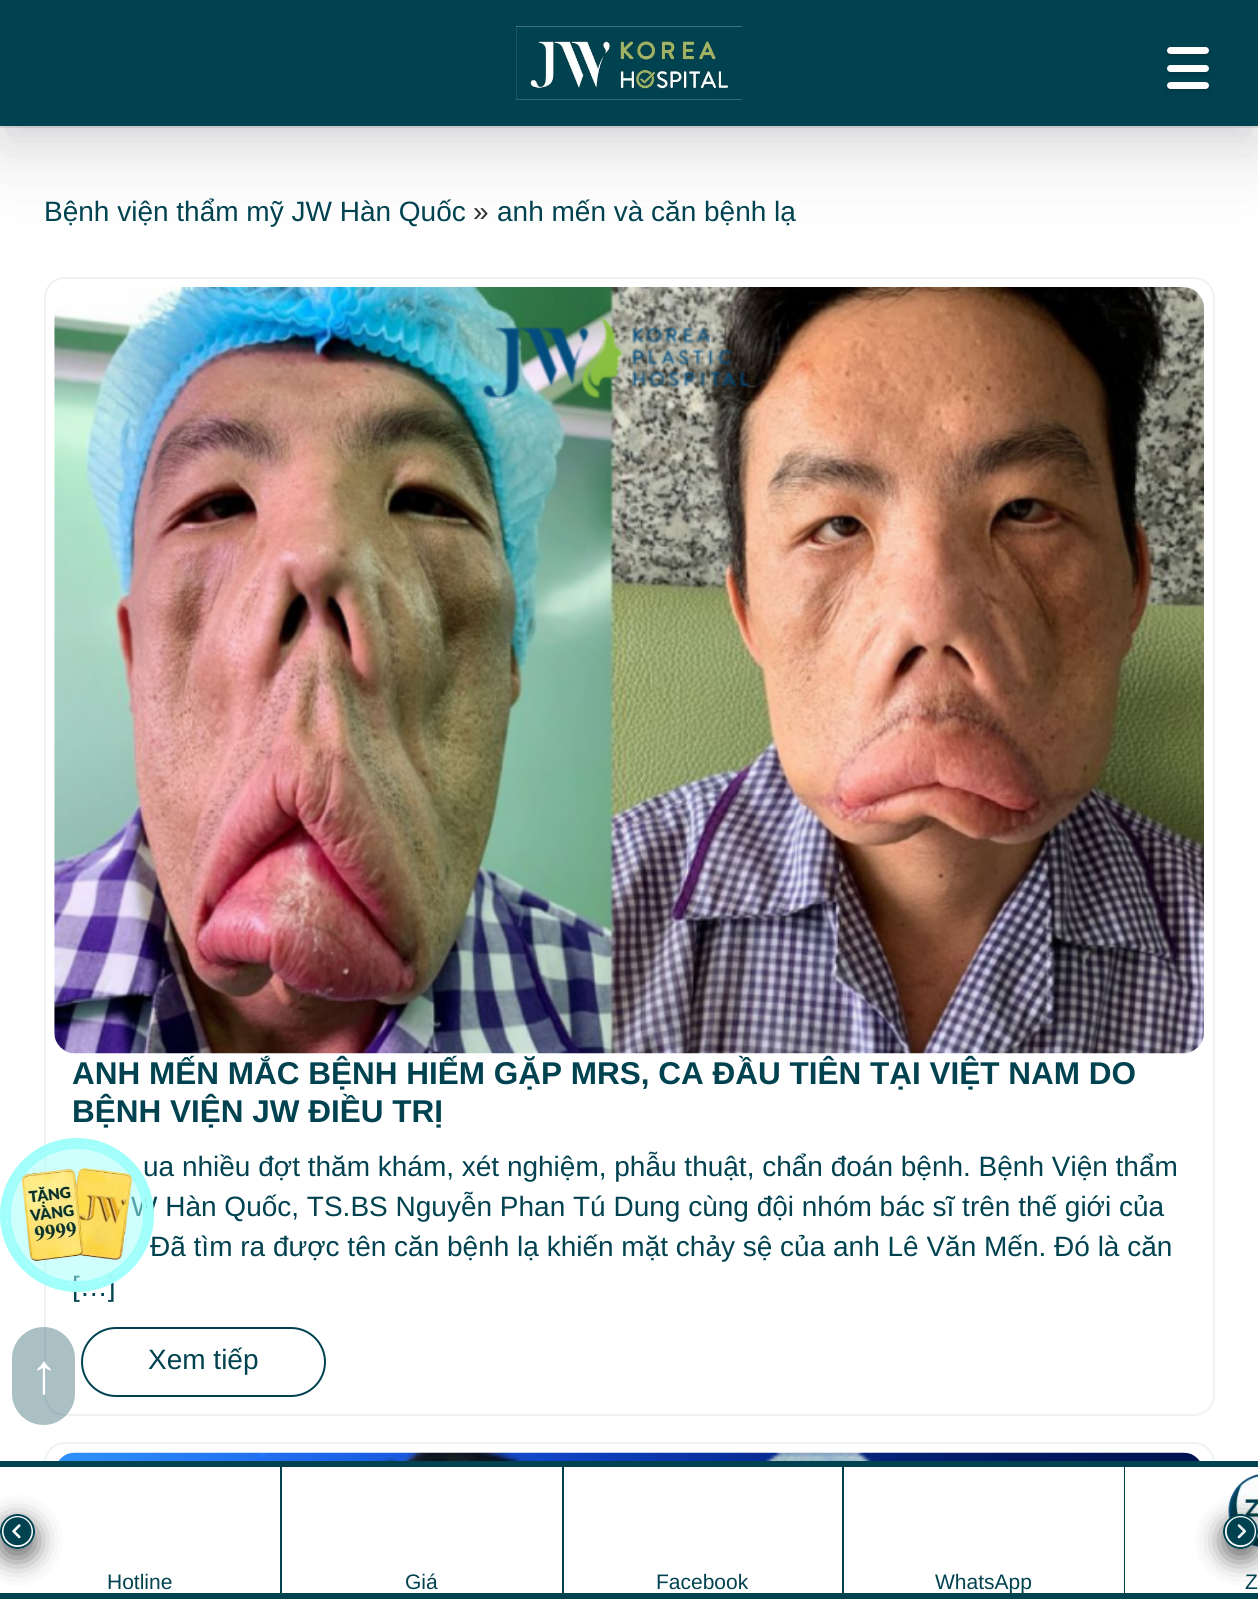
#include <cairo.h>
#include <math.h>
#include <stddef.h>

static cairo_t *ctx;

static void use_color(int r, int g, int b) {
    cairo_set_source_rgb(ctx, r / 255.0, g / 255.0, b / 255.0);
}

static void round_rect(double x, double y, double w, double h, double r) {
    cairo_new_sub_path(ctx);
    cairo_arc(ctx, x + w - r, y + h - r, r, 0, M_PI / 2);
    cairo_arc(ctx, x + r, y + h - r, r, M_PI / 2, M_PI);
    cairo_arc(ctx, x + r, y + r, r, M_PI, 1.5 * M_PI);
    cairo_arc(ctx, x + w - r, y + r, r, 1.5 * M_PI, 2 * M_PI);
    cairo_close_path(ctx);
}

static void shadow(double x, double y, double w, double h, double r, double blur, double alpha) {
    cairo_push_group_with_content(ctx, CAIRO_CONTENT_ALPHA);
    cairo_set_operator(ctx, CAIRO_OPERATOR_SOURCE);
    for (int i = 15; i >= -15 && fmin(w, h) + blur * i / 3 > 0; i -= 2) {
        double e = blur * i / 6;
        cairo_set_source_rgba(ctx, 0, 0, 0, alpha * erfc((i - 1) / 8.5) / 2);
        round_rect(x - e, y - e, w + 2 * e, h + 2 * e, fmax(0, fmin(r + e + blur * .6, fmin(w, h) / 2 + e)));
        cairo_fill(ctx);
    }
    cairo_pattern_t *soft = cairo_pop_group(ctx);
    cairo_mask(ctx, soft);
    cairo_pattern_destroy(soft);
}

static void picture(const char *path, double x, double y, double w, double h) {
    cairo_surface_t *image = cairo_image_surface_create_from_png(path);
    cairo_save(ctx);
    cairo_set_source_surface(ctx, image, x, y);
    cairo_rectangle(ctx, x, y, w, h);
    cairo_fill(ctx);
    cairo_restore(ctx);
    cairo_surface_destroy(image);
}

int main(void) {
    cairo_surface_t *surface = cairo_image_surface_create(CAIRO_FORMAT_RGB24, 1258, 1599);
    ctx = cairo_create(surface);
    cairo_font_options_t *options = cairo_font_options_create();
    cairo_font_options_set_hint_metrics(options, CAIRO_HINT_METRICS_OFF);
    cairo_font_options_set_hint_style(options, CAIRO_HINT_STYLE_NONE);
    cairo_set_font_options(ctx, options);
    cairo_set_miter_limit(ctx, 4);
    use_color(255, 255, 255);
    cairo_paint(ctx);
    round_rect(45, 278, 1169, 1137, 20);
    use_color(238, 242, 243);
    cairo_stroke(ctx);
    use_color(17, 17, 26);
    shadow(0, 28, 1258, 126, 0, 42, 0.1);
    shadow(0, 14, 1258, 126, 0, 21, 0.1);
    cairo_set_source_rgba(ctx, 0.067, 0.067, 0.102, 0.1);
    cairo_rectangle(ctx, 0, 126, 1258, 2);
    cairo_fill(ctx);
    use_color(0, 66, 80);
    cairo_rectangle(ctx, 0, 0, 1258, 126);
    cairo_fill(ctx);
    use_color(255, 255, 255);
    cairo_rectangle(ctx, 516, 26, 226, 74);
    cairo_fill(ctx);
    picture("img1.png", 516, 26, 226, 74);
    use_color(0, 0, 0);
    shadow(1167, 49, 42, 7, 3.5, 2, 0.2);
    use_color(255, 255, 255);
    round_rect(1167, 47, 42, 7, 3.5);
    cairo_fill(ctx);
    use_color(0, 0, 0);
    shadow(1167, 67, 42, 7, 3.5, 2, 0.2);
    use_color(255, 255, 255);
    round_rect(1167, 65, 42, 7, 3.5);
    cairo_fill(ctx);
    use_color(0, 0, 0);
    shadow(1167, 84, 42, 7, 3.5, 2, 0.2);
    use_color(255, 255, 255);
    round_rect(1167, 82, 42, 7, 3.5);
    cairo_fill(ctx);
    cairo_select_font_face(ctx, "Liberation Sans", CAIRO_FONT_SLANT_NORMAL, CAIRO_FONT_WEIGHT_NORMAL);
    cairo_set_font_size(ctx, 28);
    use_color(0, 66, 80);
    cairo_move_to(ctx, 44, 221);
    cairo_show_text(ctx, "Bệnh viện thẩm mỹ JW Hàn Quốc");
    use_color(51, 51, 51);
    cairo_move_to(ctx, 473, 221);
    cairo_show_text(ctx, "»");
    use_color(0, 66, 80);
    cairo_move_to(ctx, 497, 221);
    cairo_show_text(ctx, "anh mến và căn bệnh lạ");
    picture("img2.png", 54, 287, 1150, 767);
    cairo_select_font_face(ctx, "Liberation Sans", CAIRO_FONT_SLANT_NORMAL, CAIRO_FONT_WEIGHT_BOLD);
    cairo_set_font_size(ctx, 31.5);
    cairo_move_to(ctx, 72, 1084);
    cairo_show_text(ctx, "ANH MẾN MẮC BỆNH HIẾM GẶP MRS, CA ĐẦU TIÊN TẠI VIỆT NAM DO");
    cairo_move_to(ctx, 72, 1122);
    cairo_show_text(ctx, "BỆNH VIỆN JW ĐIỀU TRỊ");
    cairo_select_font_face(ctx, "Liberation Sans", CAIRO_FONT_SLANT_NORMAL, CAIRO_FONT_WEIGHT_NORMAL);
    cairo_set_font_size(ctx, 28);
    cairo_move_to(ctx, 143, 1176);
    cairo_show_text(ctx, "ua nhiều đợt thăm khám, xét nghiệm, phẫu thuật, chẩn đoán bệnh. Bệnh Viện thẩm");
    cairo_move_to(ctx, 131, 1216);
    cairo_show_text(ctx, "W Hàn Quốc, TS.BS Nguyễn Phan Tú Dung cùng đội nhóm bác sĩ trên thế giới của");
    cairo_move_to(ctx, 150, 1256);
    cairo_show_text(ctx, "Đã tìm ra được tên căn bệnh lạ khiến mặt chảy sệ của anh Lê Văn Mến. Đó là căn");
    cairo_move_to(ctx, 72, 1296);
    cairo_show_text(ctx, "[…]");
    round_rect(82, 1328, 243, 68, 34);
    cairo_stroke(ctx);
    cairo_move_to(ctx, 148, 1369);
    cairo_show_text(ctx, "Xem tiếp");
    round_rect(45, 1443, 1169, 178, 20);
    use_color(238, 242, 243);
    cairo_stroke(ctx);
    picture("img3.png", 58, 1452, 1142, 9);
    cairo_set_source_rgba(ctx, 0.627, 1, 0.984, 0.3);
    cairo_arc(ctx, 77, 1215, 68, 0, 2 * M_PI);
    cairo_fill_preserve(ctx);
    use_color(160, 255, 251);
    cairo_set_line_width(ctx, 4);
    cairo_stroke(ctx);
    cairo_set_source_rgba(ctx, 0.627, 1, 0.984, 0.3);
    cairo_arc(ctx, 77, 1215, 73.5, 0, 2 * M_PI);
    cairo_fill_preserve(ctx);
    use_color(160, 255, 251);
    cairo_set_line_width(ctx, 7);
    cairo_stroke(ctx);
    picture("img4.png", 22, 1168, 111, 93);
    use_color(0, 66, 80);
    cairo_rectangle(ctx, 0, 1461, 1258, 138);
    cairo_fill(ctx);
    cairo_set_source_rgba(ctx, 0, 0.259, 0.314, 0.33);
    round_rect(12, 1327, 63, 98, 31.5);
    cairo_fill(ctx);
    cairo_set_font_size(ctx, 56);
    use_color(255, 255, 255);
    cairo_move_to(ctx, 30, 1393);
    cairo_show_text(ctx, "↑");
    cairo_rectangle(ctx, 0, 1467, 280, 126);
    cairo_fill(ctx);
    cairo_save(ctx);
    cairo_set_fill_rule(ctx, CAIRO_FILL_RULE_EVEN_ODD);
    cairo_new_path(ctx);
    cairo_move_to(ctx, 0, 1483);
    cairo_line_to(ctx, 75, 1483);
    cairo_line_to(ctx, 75, 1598);
    cairo_line_to(ctx, 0, 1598);
    cairo_close_path(ctx);
    cairo_move_to(ctx, 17.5, 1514);
    cairo_curve_to(ctx, 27, 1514, 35, 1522, 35, 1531.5);
    cairo_curve_to(ctx, 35, 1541, 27, 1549, 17.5, 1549);
    cairo_curve_to(ctx, 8, 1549, 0, 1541, 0, 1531.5);
    cairo_curve_to(ctx, 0, 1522, 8, 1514, 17.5, 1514);
    cairo_close_path(ctx);
    cairo_clip(ctx);
    use_color(0, 0, 0);
    shadow(0, 1523, 35, 35, 17.5, 13, 0.35);
    shadow(0, 1523, 35, 35, 17.5, 13, 0.35);
    cairo_restore(ctx);
    cairo_set_source_rgba(ctx, 1, 1, 1, 0.9);
    cairo_arc(ctx, 17.5, 1531.5, 16.5, 0, 2 * M_PI);
    cairo_fill_preserve(ctx);
    use_color(0, 66, 80);
    cairo_set_line_width(ctx, 2);
    cairo_stroke(ctx);
    picture("img5.png", 3, 1517, 29, 29);
    use_color(255, 255, 255);
    cairo_rectangle(ctx, 1125, 1467, 133, 126);
    cairo_fill(ctx);
    picture("img7.png", 1228, 1474, 30, 74);
    cairo_save(ctx);
    cairo_set_fill_rule(ctx, CAIRO_FILL_RULE_EVEN_ODD);
    cairo_new_path(ctx);
    cairo_move_to(ctx, 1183, 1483);
    cairo_line_to(ctx, 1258, 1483);
    cairo_line_to(ctx, 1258, 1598);
    cairo_line_to(ctx, 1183, 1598);
    cairo_close_path(ctx);
    cairo_move_to(ctx, 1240.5, 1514);
    cairo_curve_to(ctx, 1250, 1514, 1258, 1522, 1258, 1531.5);
    cairo_curve_to(ctx, 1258, 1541, 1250, 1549, 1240.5, 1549);
    cairo_curve_to(ctx, 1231, 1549, 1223, 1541, 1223, 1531.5);
    cairo_curve_to(ctx, 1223, 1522, 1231, 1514, 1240.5, 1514);
    cairo_close_path(ctx);
    cairo_clip(ctx);
    use_color(0, 0, 0);
    shadow(1223, 1523, 35, 35, 17.5, 13, 0.35);
    shadow(1223, 1523, 35, 35, 17.5, 13, 0.35);
    cairo_restore(ctx);
    cairo_set_source_rgba(ctx, 1, 1, 1, 0.9);
    cairo_arc(ctx, 1240.5, 1531.5, 16.5, 0, 2 * M_PI);
    cairo_fill_preserve(ctx);
    use_color(0, 66, 80);
    cairo_stroke(ctx);
    picture("img6.png", 1226, 1517, 29, 29);
    cairo_set_font_size(ctx, 21);
    cairo_move_to(ctx, 107, 1589);
    cairo_show_text(ctx, "Hotline");
    use_color(255, 255, 255);
    cairo_rectangle(ctx, 282, 1467, 280, 126);
    cairo_fill(ctx);
    use_color(0, 66, 80);
    cairo_move_to(ctx, 405, 1589);
    cairo_show_text(ctx, "Giá");
    use_color(255, 255, 255);
    cairo_rectangle(ctx, 564, 1467, 278, 126);
    cairo_fill(ctx);
    use_color(0, 66, 80);
    cairo_move_to(ctx, 656, 1589);
    cairo_show_text(ctx, "Facebook");
    use_color(255, 255, 255);
    cairo_rectangle(ctx, 844, 1467, 280, 126);
    cairo_fill(ctx);
    cairo_save(ctx);
    cairo_rectangle(ctx, 0, 1461, 1258, 132);
    cairo_clip(ctx);
    use_color(0, 66, 80);
    cairo_move_to(ctx, 935, 1589);
    cairo_show_text(ctx, "WhatsApp");
    cairo_restore(ctx);
    use_color(0, 66, 80);
    cairo_move_to(ctx, 1245, 1589);
    cairo_show_text(ctx, "Z");
    cairo_surface_write_to_png(surface, "result.png");
    cairo_font_options_destroy(options);
    cairo_destroy(ctx);
    cairo_surface_destroy(surface);
    return 0;
}
